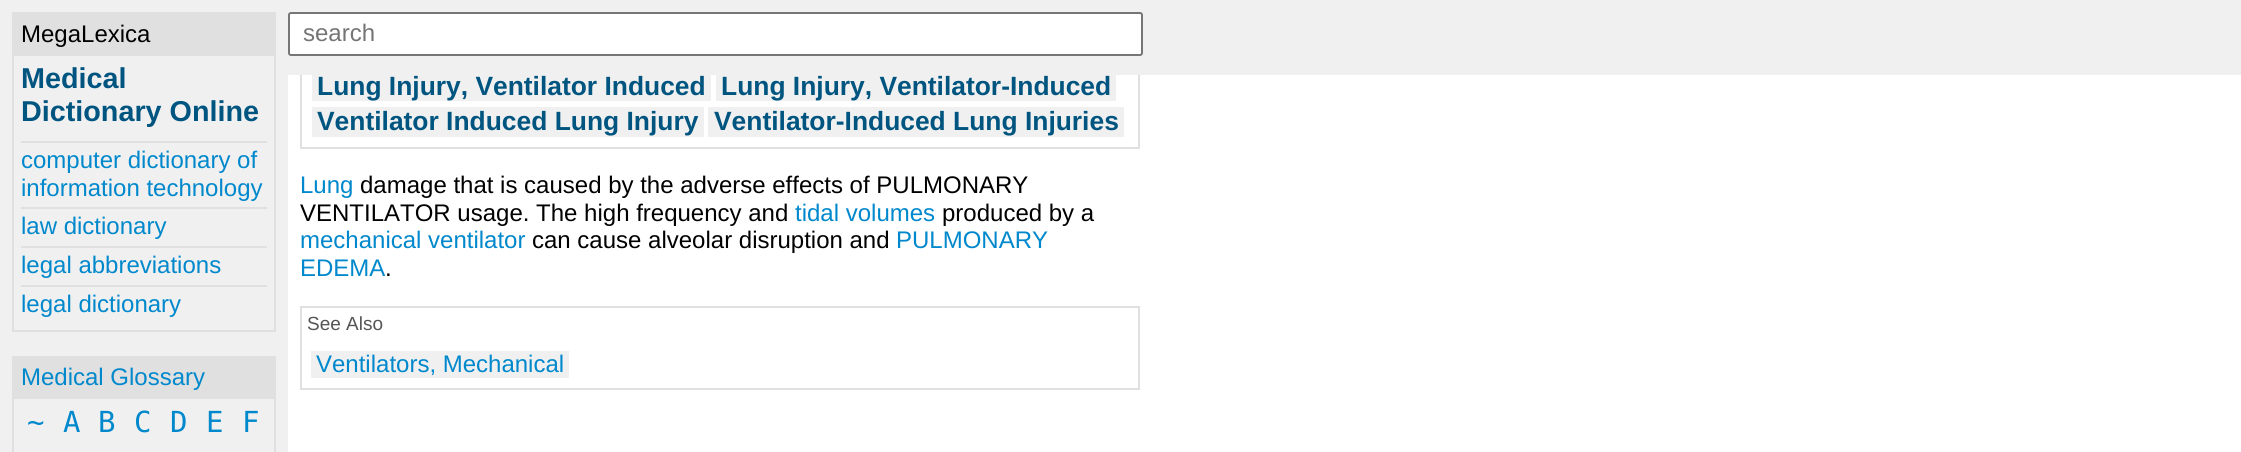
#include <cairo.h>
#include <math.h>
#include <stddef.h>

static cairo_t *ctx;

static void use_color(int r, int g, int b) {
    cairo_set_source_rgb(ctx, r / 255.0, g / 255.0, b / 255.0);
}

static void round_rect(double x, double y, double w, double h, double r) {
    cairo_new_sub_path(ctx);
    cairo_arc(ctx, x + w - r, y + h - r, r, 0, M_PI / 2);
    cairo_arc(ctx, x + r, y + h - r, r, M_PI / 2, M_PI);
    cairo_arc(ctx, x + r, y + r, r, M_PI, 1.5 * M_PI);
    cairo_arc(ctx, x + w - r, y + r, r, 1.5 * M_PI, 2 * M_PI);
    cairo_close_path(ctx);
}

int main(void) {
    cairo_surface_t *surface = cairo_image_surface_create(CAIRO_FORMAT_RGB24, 2241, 452);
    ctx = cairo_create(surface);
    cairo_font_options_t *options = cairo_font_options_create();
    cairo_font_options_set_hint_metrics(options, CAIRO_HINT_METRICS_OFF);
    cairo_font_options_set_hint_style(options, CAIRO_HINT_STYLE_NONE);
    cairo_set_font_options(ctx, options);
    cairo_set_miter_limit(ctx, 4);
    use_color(255, 255, 255);
    cairo_paint(ctx);
    use_color(240, 240, 240);
    cairo_rectangle(ctx, 0, 0, 288, 452);
    cairo_fill(ctx);
    cairo_rectangle(ctx, 13, 13, 262, 318);
    use_color(224, 224, 224);
    cairo_stroke(ctx);
    cairo_rectangle(ctx, 14, 14, 260, 42);
    cairo_fill(ctx);
    cairo_select_font_face(ctx, "Liberation Sans", CAIRO_FONT_SLANT_NORMAL, CAIRO_FONT_WEIGHT_NORMAL);
    cairo_set_font_size(ctx, 24);
    use_color(0, 0, 0);
    cairo_move_to(ctx, 21, 42);
    cairo_show_text(ctx, "MegaLexica");
    cairo_select_font_face(ctx, "Liberation Sans", CAIRO_FONT_SLANT_NORMAL, CAIRO_FONT_WEIGHT_BOLD);
    cairo_set_font_size(ctx, 28.75);
    use_color(0, 85, 128);
    cairo_move_to(ctx, 21, 88);
    cairo_show_text(ctx, "Medical");
    cairo_move_to(ctx, 21, 121);
    cairo_show_text(ctx, "Dictionary Online");
    use_color(224, 224, 224);
    cairo_rectangle(ctx, 21, 141, 246, 2);
    cairo_fill(ctx);
    cairo_select_font_face(ctx, "Liberation Sans", CAIRO_FONT_SLANT_NORMAL, CAIRO_FONT_WEIGHT_NORMAL);
    cairo_set_font_size(ctx, 24);
    use_color(0, 136, 204);
    cairo_move_to(ctx, 21, 168);
    cairo_show_text(ctx, "computer dictionary of");
    cairo_move_to(ctx, 21, 196);
    cairo_show_text(ctx, "information technology");
    use_color(224, 224, 224);
    cairo_rectangle(ctx, 21, 207, 246, 2);
    cairo_fill(ctx);
    use_color(0, 136, 204);
    cairo_move_to(ctx, 21, 234);
    cairo_show_text(ctx, "law dictionary");
    use_color(224, 224, 224);
    cairo_rectangle(ctx, 21, 246, 246, 2);
    cairo_fill(ctx);
    use_color(0, 136, 204);
    cairo_move_to(ctx, 21, 273);
    cairo_show_text(ctx, "legal abbreviations");
    use_color(224, 224, 224);
    cairo_rectangle(ctx, 21, 285, 246, 2);
    cairo_fill(ctx);
    use_color(0, 136, 204);
    cairo_move_to(ctx, 21, 312);
    cairo_show_text(ctx, "legal dictionary");
    cairo_rectangle(ctx, 13, 357, 262, 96);
    use_color(224, 224, 224);
    cairo_stroke(ctx);
    cairo_rectangle(ctx, 14, 358, 260, 41);
    cairo_fill(ctx);
    use_color(0, 136, 204);
    cairo_move_to(ctx, 21, 385);
    cairo_show_text(ctx, "Medical Glossary");
    cairo_select_font_face(ctx, "DejaVu Sans Mono", CAIRO_FONT_SLANT_NORMAL, CAIRO_FONT_WEIGHT_NORMAL);
    cairo_set_font_size(ctx, 29);
    cairo_move_to(ctx, 27, 432);
    cairo_show_text(ctx, "~");
    cairo_move_to(ctx, 63, 432);
    cairo_show_text(ctx, "A");
    cairo_move_to(ctx, 98, 432);
    cairo_show_text(ctx, "B");
    cairo_move_to(ctx, 134, 432);
    cairo_show_text(ctx, "C");
    cairo_move_to(ctx, 170, 432);
    cairo_show_text(ctx, "D");
    cairo_move_to(ctx, 206, 432);
    cairo_show_text(ctx, "E");
    cairo_move_to(ctx, 242, 432);
    cairo_show_text(ctx, "F");
    cairo_rectangle(ctx, 301, -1, 838, 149);
    use_color(224, 224, 224);
    cairo_stroke(ctx);
    use_color(240, 240, 240);
    cairo_rectangle(ctx, 288, 0, 1953, 75);
    cairo_fill(ctx);
    use_color(255, 255, 255);
    round_rect(289, 13, 853, 42, 2);
    cairo_fill_preserve(ctx);
    use_color(118, 118, 118);
    cairo_stroke(ctx);
    cairo_select_font_face(ctx, "Liberation Sans", CAIRO_FONT_SLANT_NORMAL, CAIRO_FONT_WEIGHT_NORMAL);
    cairo_set_font_size(ctx, 24);
    use_color(117, 117, 117);
    cairo_move_to(ctx, 303, 41);
    cairo_show_text(ctx, "search");
    use_color(240, 240, 240);
    cairo_rectangle(ctx, 312, 75, 399, 26);
    cairo_fill(ctx);
    cairo_select_font_face(ctx, "Liberation Sans", CAIRO_FONT_SLANT_NORMAL, CAIRO_FONT_WEIGHT_BOLD);
    cairo_set_font_size(ctx, 26.4);
    use_color(0, 85, 128);
    cairo_move_to(ctx, 317, 95);
    cairo_show_text(ctx, "Lung Injury, Ventilator Induced");
    use_color(240, 240, 240);
    cairo_rectangle(ctx, 716, 75, 400, 26);
    cairo_fill(ctx);
    use_color(0, 85, 128);
    cairo_move_to(ctx, 721, 95);
    cairo_show_text(ctx, "Lung Injury, Ventilator-Induced");
    use_color(240, 240, 240);
    cairo_rectangle(ctx, 312, 107, 392, 30);
    cairo_fill(ctx);
    use_color(0, 85, 128);
    cairo_move_to(ctx, 317, 130);
    cairo_show_text(ctx, "Ventilator Induced Lung Injury");
    use_color(240, 240, 240);
    cairo_rectangle(ctx, 708, 107, 416, 30);
    cairo_fill(ctx);
    use_color(0, 85, 128);
    cairo_move_to(ctx, 714, 130);
    cairo_show_text(ctx, "Ventilator-Induced Lung Injuries");
    cairo_select_font_face(ctx, "Liberation Sans", CAIRO_FONT_SLANT_NORMAL, CAIRO_FONT_WEIGHT_NORMAL);
    cairo_set_font_size(ctx, 24);
    use_color(0, 136, 204);
    cairo_move_to(ctx, 300, 193);
    cairo_show_text(ctx, "Lung");
    use_color(0, 0, 0);
    cairo_move_to(ctx, 360, 193);
    cairo_show_text(ctx, "damage that is caused by the adverse effects of PULMONARY");
    cairo_move_to(ctx, 300, 221);
    cairo_show_text(ctx, "VENTILATOR usage. The high frequency and");
    use_color(0, 136, 204);
    cairo_move_to(ctx, 795, 221);
    cairo_show_text(ctx, "tidal volumes");
    use_color(0, 0, 0);
    cairo_move_to(ctx, 942, 221);
    cairo_show_text(ctx, "produced by a");
    use_color(0, 136, 204);
    cairo_move_to(ctx, 300, 248);
    cairo_show_text(ctx, "mechanical ventilator");
    use_color(0, 0, 0);
    cairo_move_to(ctx, 532, 248);
    cairo_show_text(ctx, "can cause alveolar disruption and");
    use_color(0, 136, 204);
    cairo_move_to(ctx, 896, 248);
    cairo_show_text(ctx, "PULMONARY");
    cairo_move_to(ctx, 300, 276);
    cairo_show_text(ctx, "EDEMA");
    use_color(0, 0, 0);
    cairo_move_to(ctx, 385, 276);
    cairo_show_text(ctx, ".");
    cairo_rectangle(ctx, 301, 307, 838, 82);
    use_color(224, 224, 224);
    cairo_stroke(ctx);
    cairo_set_font_size(ctx, 19);
    use_color(85, 85, 85);
    cairo_move_to(ctx, 307, 330);
    cairo_show_text(ctx, "See Also");
    use_color(240, 240, 240);
    cairo_rectangle(ctx, 311, 351, 258, 27);
    cairo_fill(ctx);
    cairo_set_font_size(ctx, 24);
    use_color(0, 136, 204);
    cairo_move_to(ctx, 316, 372);
    cairo_show_text(ctx, "Ventilators, Mechanical");
    cairo_surface_write_to_png(surface, "result.png");
    cairo_font_options_destroy(options);
    cairo_destroy(ctx);
    cairo_surface_destroy(surface);
    return 0;
}
